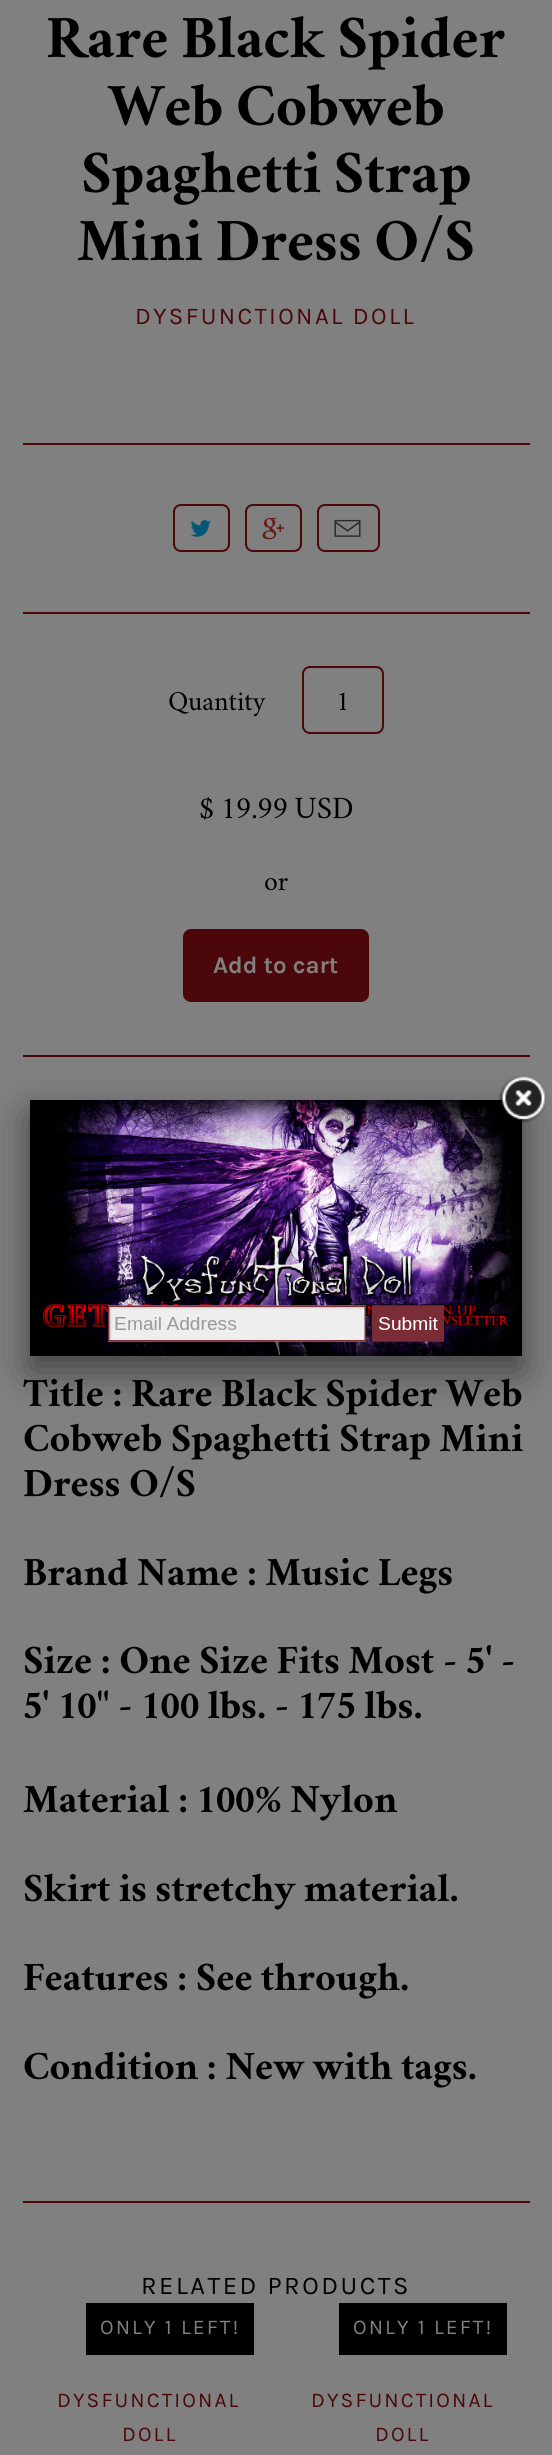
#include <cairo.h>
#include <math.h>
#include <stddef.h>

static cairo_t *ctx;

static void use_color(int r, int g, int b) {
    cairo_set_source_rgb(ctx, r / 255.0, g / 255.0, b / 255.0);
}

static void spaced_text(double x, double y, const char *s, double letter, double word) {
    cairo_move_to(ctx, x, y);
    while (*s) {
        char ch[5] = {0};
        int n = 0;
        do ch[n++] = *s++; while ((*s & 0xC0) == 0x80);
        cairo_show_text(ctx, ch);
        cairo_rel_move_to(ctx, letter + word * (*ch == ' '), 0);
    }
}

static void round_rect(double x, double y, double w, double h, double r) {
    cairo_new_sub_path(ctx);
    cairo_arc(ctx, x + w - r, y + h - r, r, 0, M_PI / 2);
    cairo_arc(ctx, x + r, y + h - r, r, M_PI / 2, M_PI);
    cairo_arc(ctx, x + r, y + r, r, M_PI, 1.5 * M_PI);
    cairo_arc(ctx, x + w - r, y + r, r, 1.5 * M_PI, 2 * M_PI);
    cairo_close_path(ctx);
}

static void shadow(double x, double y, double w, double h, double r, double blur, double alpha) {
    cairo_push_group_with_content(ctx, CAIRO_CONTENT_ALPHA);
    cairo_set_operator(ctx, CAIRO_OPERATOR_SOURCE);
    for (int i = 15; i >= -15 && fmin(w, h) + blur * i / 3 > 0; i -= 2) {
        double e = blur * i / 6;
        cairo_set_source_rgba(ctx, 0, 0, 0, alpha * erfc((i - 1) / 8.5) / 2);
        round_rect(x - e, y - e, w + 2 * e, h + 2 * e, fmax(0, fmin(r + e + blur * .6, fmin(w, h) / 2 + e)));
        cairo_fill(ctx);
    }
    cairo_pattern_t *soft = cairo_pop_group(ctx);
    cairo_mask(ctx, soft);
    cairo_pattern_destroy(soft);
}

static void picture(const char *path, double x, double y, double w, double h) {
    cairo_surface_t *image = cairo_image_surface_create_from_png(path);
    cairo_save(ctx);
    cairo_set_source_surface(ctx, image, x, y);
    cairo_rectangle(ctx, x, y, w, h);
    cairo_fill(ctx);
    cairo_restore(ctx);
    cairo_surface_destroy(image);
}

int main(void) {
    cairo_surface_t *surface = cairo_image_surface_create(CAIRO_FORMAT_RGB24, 552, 2455);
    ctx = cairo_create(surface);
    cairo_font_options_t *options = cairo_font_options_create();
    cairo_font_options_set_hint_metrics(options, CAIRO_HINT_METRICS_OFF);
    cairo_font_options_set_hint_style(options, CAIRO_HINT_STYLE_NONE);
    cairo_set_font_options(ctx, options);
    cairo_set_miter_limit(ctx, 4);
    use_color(128, 128, 128);
    cairo_paint(ctx);
    cairo_select_font_face(ctx, "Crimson", CAIRO_FONT_SLANT_NORMAL, CAIRO_FONT_WEIGHT_BOLD);
    cairo_set_font_size(ctx, 54);
    use_color(0, 0, 0);
    cairo_move_to(ctx, 46, 57);
    cairo_show_text(ctx, "Rare Black Spider");
    cairo_move_to(ctx, 108, 125);
    cairo_show_text(ctx, "Web Cobweb");
    cairo_move_to(ctx, 81, 192);
    cairo_show_text(ctx, "Spaghetti Strap");
    cairo_move_to(ctx, 77, 260);
    cairo_show_text(ctx, "Mini Dress O/S");
    cairo_select_font_face(ctx, "Karla", CAIRO_FONT_SLANT_NORMAL, CAIRO_FONT_WEIGHT_NORMAL);
    cairo_set_font_size(ctx, 24);
    use_color(75, 7, 10);
    spaced_text(135, 324, "DYSFUNCTIONAL DOLL", 2.4, 0);
    cairo_rectangle(ctx, 23, 443, 507, 2);
    cairo_fill(ctx);
    round_rect(174, 505, 55, 46, 7);
    cairo_stroke(ctx);
    picture("img1.png", 190, 520, 21, 17);
    round_rect(246, 505, 55, 46, 7);
    cairo_stroke(ctx);
    picture("img2.png", 262, 517, 22, 23);
    round_rect(318, 505, 61, 46, 7);
    cairo_stroke(ctx);
    picture("img3.png", 334, 519, 27, 18);
    cairo_rectangle(ctx, 23, 612, 507, 2);
    cairo_fill(ctx);
    cairo_select_font_face(ctx, "Crimson", CAIRO_FONT_SLANT_NORMAL, CAIRO_FONT_WEIGHT_NORMAL);
    use_color(0, 0, 0);
    cairo_move_to(ctx, 168, 710);
    cairo_show_text(ctx, "Quantity");
    round_rect(303, 667, 80, 66, 7);
    use_color(75, 7, 10);
    cairo_stroke(ctx);
    use_color(0, 0, 0);
    cairo_move_to(ctx, 336, 710);
    cairo_show_text(ctx, "1");
    cairo_set_font_size(ctx, 27);
    cairo_move_to(ctx, 199, 818);
    cairo_show_text(ctx, "$ 19.99 USD");
    cairo_set_font_size(ctx, 24);
    cairo_move_to(ctx, 264, 890);
    cairo_show_text(ctx, "or");
    use_color(75, 7, 10);
    round_rect(183, 929, 186, 73, 8);
    cairo_fill(ctx);
    cairo_select_font_face(ctx, "Karla", CAIRO_FONT_SLANT_NORMAL, CAIRO_FONT_WEIGHT_BOLD);
    use_color(128, 128, 128);
    cairo_move_to(ctx, 213, 973);
    cairo_show_text(ctx, "Add to cart");
    use_color(75, 7, 10);
    cairo_rectangle(ctx, 23, 1055, 507, 2);
    cairo_fill(ctx);
    cairo_select_font_face(ctx, "Crimson", CAIRO_FONT_SLANT_NORMAL, CAIRO_FONT_WEIGHT_BOLD);
    cairo_set_font_size(ctx, 36);
    use_color(0, 0, 0);
    cairo_move_to(ctx, 23, 1406);
    cairo_show_text(ctx, "Title : Rare Black Spider Web");
    cairo_move_to(ctx, 23, 1451);
    cairo_show_text(ctx, "Cobweb Spaghetti Strap Mini");
    cairo_move_to(ctx, 23, 1496);
    cairo_show_text(ctx, "Dress O/S");
    cairo_move_to(ctx, 23, 1585);
    cairo_show_text(ctx, "Brand Name : Music Legs");
    cairo_move_to(ctx, 23, 1673);
    cairo_show_text(ctx, "Size : One Size Fits Most - 5' -");
    cairo_move_to(ctx, 23, 1718);
    cairo_show_text(ctx, "5' 10\" - 100 lbs. - 175 lbs.");
    cairo_move_to(ctx, 23, 1812);
    cairo_show_text(ctx, "Material : 100% Nylon");
    cairo_move_to(ctx, 23, 1901);
    cairo_show_text(ctx, "Skirt is stretchy material.");
    cairo_move_to(ctx, 23, 1990);
    cairo_show_text(ctx, "Features : See through.");
    cairo_move_to(ctx, 23, 2079);
    cairo_show_text(ctx, "Condition : New with tags.");
    use_color(75, 7, 10);
    cairo_rectangle(ctx, 23, 2201, 507, 2);
    cairo_fill(ctx);
    cairo_select_font_face(ctx, "Karla", CAIRO_FONT_SLANT_NORMAL, CAIRO_FONT_WEIGHT_NORMAL);
    cairo_set_font_size(ctx, 25.5);
    use_color(0, 0, 0);
    spaced_text(141, 2294, "RELATED PRODUCTS", 2.5, 0);
    cairo_rectangle(ctx, 86, 2303, 168, 52);
    cairo_fill(ctx);
    cairo_set_font_size(ctx, 21);
    use_color(128, 128, 128);
    spaced_text(100, 2334, "ONLY 1 LEFT!", 2.1, 0);
    use_color(75, 7, 10);
    spaced_text(57, 2407, "DYSFUNCTIONAL", 2.1, 0);
    spaced_text(122, 2441, "DOLL", 2.1, 0);
    use_color(0, 0, 0);
    cairo_rectangle(ctx, 339, 2303, 168, 52);
    cairo_fill(ctx);
    use_color(128, 128, 128);
    spaced_text(353, 2334, "ONLY 1 LEFT!", 2.1, 0);
    use_color(75, 7, 10);
    spaced_text(311, 2407, "DYSFUNCTIONAL", 2.1, 0);
    spaced_text(375, 2441, "DOLL", 2.1, 0);
    use_color(0, 0, 0);
    shadow(30, 1115, 492, 256, 0, 19, 0.5);
    picture("img5.png", 30, 1100, 492, 256);
    picture("img4.png", 498, 1076, 48, 48);
    cairo_surface_write_to_png(surface, "result.png");
    cairo_font_options_destroy(options);
    cairo_destroy(ctx);
    cairo_surface_destroy(surface);
    return 0;
}
